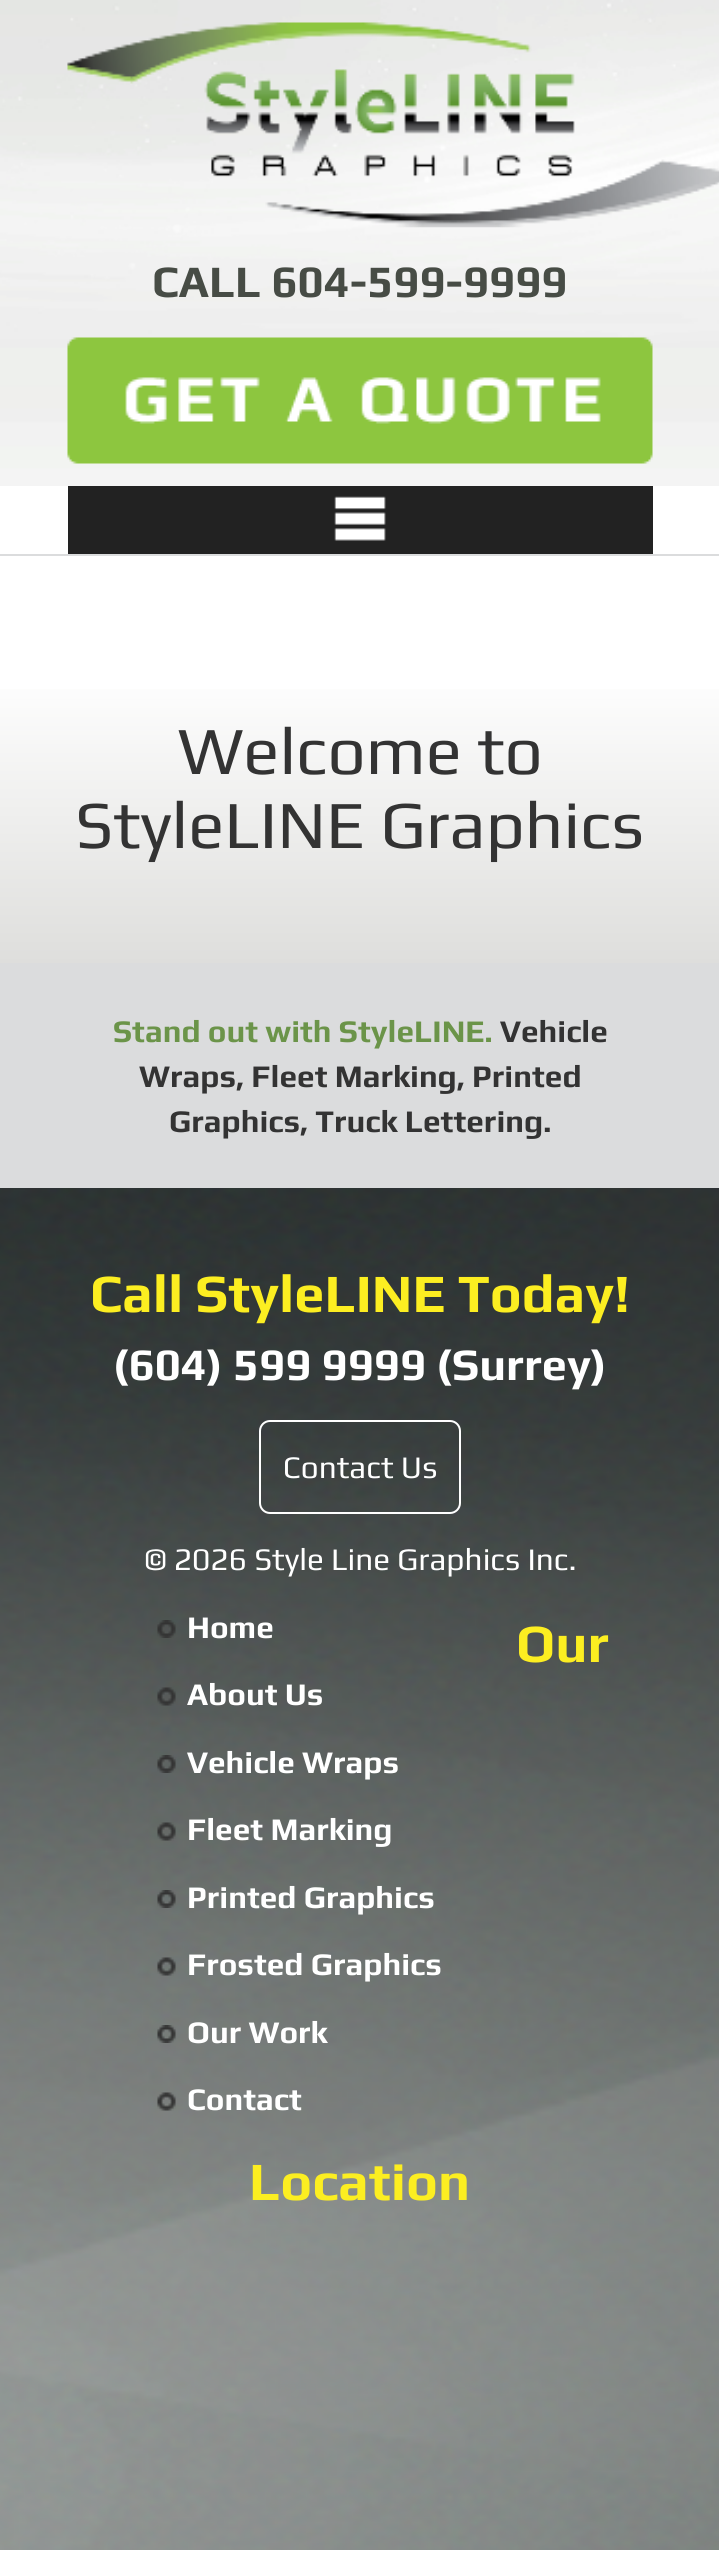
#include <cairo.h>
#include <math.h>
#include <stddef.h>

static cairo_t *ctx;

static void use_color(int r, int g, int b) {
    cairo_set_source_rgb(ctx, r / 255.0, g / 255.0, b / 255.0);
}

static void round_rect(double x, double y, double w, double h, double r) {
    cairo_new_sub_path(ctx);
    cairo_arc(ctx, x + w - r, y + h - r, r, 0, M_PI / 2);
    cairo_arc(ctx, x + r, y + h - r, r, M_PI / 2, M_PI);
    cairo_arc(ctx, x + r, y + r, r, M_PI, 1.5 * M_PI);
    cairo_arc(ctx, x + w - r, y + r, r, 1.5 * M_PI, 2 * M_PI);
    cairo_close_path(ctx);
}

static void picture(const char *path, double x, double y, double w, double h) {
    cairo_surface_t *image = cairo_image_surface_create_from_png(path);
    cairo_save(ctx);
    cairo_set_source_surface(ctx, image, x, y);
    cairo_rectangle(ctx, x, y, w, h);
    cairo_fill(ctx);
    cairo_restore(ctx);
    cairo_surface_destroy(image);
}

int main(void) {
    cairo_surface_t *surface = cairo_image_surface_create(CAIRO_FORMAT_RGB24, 719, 2550);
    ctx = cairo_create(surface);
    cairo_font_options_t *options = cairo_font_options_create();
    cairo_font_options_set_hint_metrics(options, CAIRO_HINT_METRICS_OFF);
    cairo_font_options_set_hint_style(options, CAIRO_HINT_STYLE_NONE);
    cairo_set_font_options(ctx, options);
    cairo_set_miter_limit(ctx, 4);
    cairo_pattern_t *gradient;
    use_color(255, 255, 255);
    cairo_paint(ctx);
    picture("img1.png", 0, 0, 719, 486);
    picture("img2.png", 67, 22, 652, 206);
    cairo_select_font_face(ctx, "Play", CAIRO_FONT_SLANT_NORMAL, CAIRO_FONT_WEIGHT_BOLD);
    cairo_set_font_size(ctx, 45);
    use_color(71, 76, 69);
    cairo_move_to(ctx, 152, 297);
    cairo_show_text(ctx, "CALL 604-599-9999");
    picture("img3.png", 67, 337, 586, 127);
    use_color(34, 34, 34);
    cairo_rectangle(ctx, 68, 486, 585, 68);
    cairo_fill(ctx);
    picture("img4.png", 334, 496, 52, 45);
    use_color(219, 220, 221);
    cairo_rectangle(ctx, 0, 554, 719, 2);
    cairo_fill(ctx);
    gradient = cairo_pattern_create_linear(360, 668, 360, 963);
    cairo_pattern_add_color_stop_rgba(gradient, 0, 1, 1, 1, 1);
    cairo_pattern_add_color_stop_rgba(gradient, 1, 0.871, 0.871, 0.863, 1);
    cairo_set_source(ctx, gradient);
    cairo_pattern_destroy(gradient);
    cairo_rectangle(ctx, 0, 689, 719, 274);
    cairo_fill(ctx);
    cairo_select_font_face(ctx, "Play", CAIRO_FONT_SLANT_NORMAL, CAIRO_FONT_WEIGHT_NORMAL);
    cairo_set_font_size(ctx, 67.5);
    use_color(51, 51, 51);
    cairo_move_to(ctx, 178, 774);
    cairo_show_text(ctx, "Welcome to");
    cairo_move_to(ctx, 75, 848);
    cairo_show_text(ctx, "StyleLINE Graphics");
    use_color(219, 220, 221);
    cairo_rectangle(ctx, 0, 963, 719, 225);
    cairo_fill(ctx);
    cairo_select_font_face(ctx, "Play", CAIRO_FONT_SLANT_NORMAL, CAIRO_FONT_WEIGHT_BOLD);
    cairo_set_font_size(ctx, 31.5);
    use_color(107, 148, 73);
    cairo_move_to(ctx, 113, 1042);
    cairo_show_text(ctx, "Stand out with StyleLINE.");
    use_color(51, 51, 51);
    cairo_move_to(ctx, 500, 1042);
    cairo_show_text(ctx, "Vehicle");
    cairo_move_to(ctx, 139, 1087);
    cairo_show_text(ctx, "Wraps, Fleet Marking, Printed");
    cairo_move_to(ctx, 169, 1132);
    cairo_show_text(ctx, "Graphics, Truck Lettering.");
    picture("img5.png", 0, 1188, 719, 1362);
    cairo_set_font_size(ctx, 54);
    use_color(252, 238, 33);
    cairo_move_to(ctx, 90, 1312);
    cairo_show_text(ctx, "Call StyleLINE Today!");
    cairo_set_font_size(ctx, 45);
    use_color(255, 255, 255);
    cairo_move_to(ctx, 113, 1380);
    cairo_show_text(ctx, "(604) 599 9999 (Surrey)");
    round_rect(260, 1421, 200, 92, 10);
    cairo_stroke(ctx);
    cairo_select_font_face(ctx, "Play", CAIRO_FONT_SLANT_NORMAL, CAIRO_FONT_WEIGHT_NORMAL);
    cairo_set_font_size(ctx, 31.5);
    cairo_move_to(ctx, 283, 1478);
    cairo_show_text(ctx, "Contact Us");
    cairo_move_to(ctx, 144, 1570);
    cairo_show_text(ctx, "© 2026 Style Line Graphics Inc.");
    picture("img6.png", 157, 1620, 19, 18);
    cairo_select_font_face(ctx, "Play", CAIRO_FONT_SLANT_NORMAL, CAIRO_FONT_WEIGHT_BOLD);
    cairo_move_to(ctx, 187, 1638);
    cairo_show_text(ctx, "Home");
    picture("img7.png", 157, 1687, 19, 19);
    cairo_move_to(ctx, 187, 1705);
    cairo_show_text(ctx, "About Us");
    picture("img8.png", 157, 1755, 19, 18);
    cairo_move_to(ctx, 187, 1773);
    cairo_show_text(ctx, "Vehicle Wraps");
    picture("img9.png", 157, 1822, 19, 19);
    cairo_move_to(ctx, 187, 1840);
    cairo_show_text(ctx, "Fleet Marking");
    picture("img10.png", 157, 1890, 19, 18);
    cairo_move_to(ctx, 187, 1908);
    cairo_show_text(ctx, "Printed Graphics");
    picture("img11.png", 157, 1957, 19, 19);
    cairo_move_to(ctx, 187, 1975);
    cairo_show_text(ctx, "Frosted Graphics");
    picture("img12.png", 157, 2025, 19, 18);
    cairo_move_to(ctx, 187, 2043);
    cairo_show_text(ctx, "Our Work");
    picture("img13.png", 157, 2092, 19, 19);
    cairo_move_to(ctx, 187, 2110);
    cairo_show_text(ctx, "Contact");
    cairo_set_font_size(ctx, 54);
    use_color(252, 238, 33);
    cairo_move_to(ctx, 516, 1662);
    cairo_show_text(ctx, "Our");
    cairo_move_to(ctx, 249, 2200);
    cairo_show_text(ctx, "Location");
    cairo_surface_write_to_png(surface, "result.png");
    cairo_font_options_destroy(options);
    cairo_destroy(ctx);
    cairo_surface_destroy(surface);
    return 0;
}
